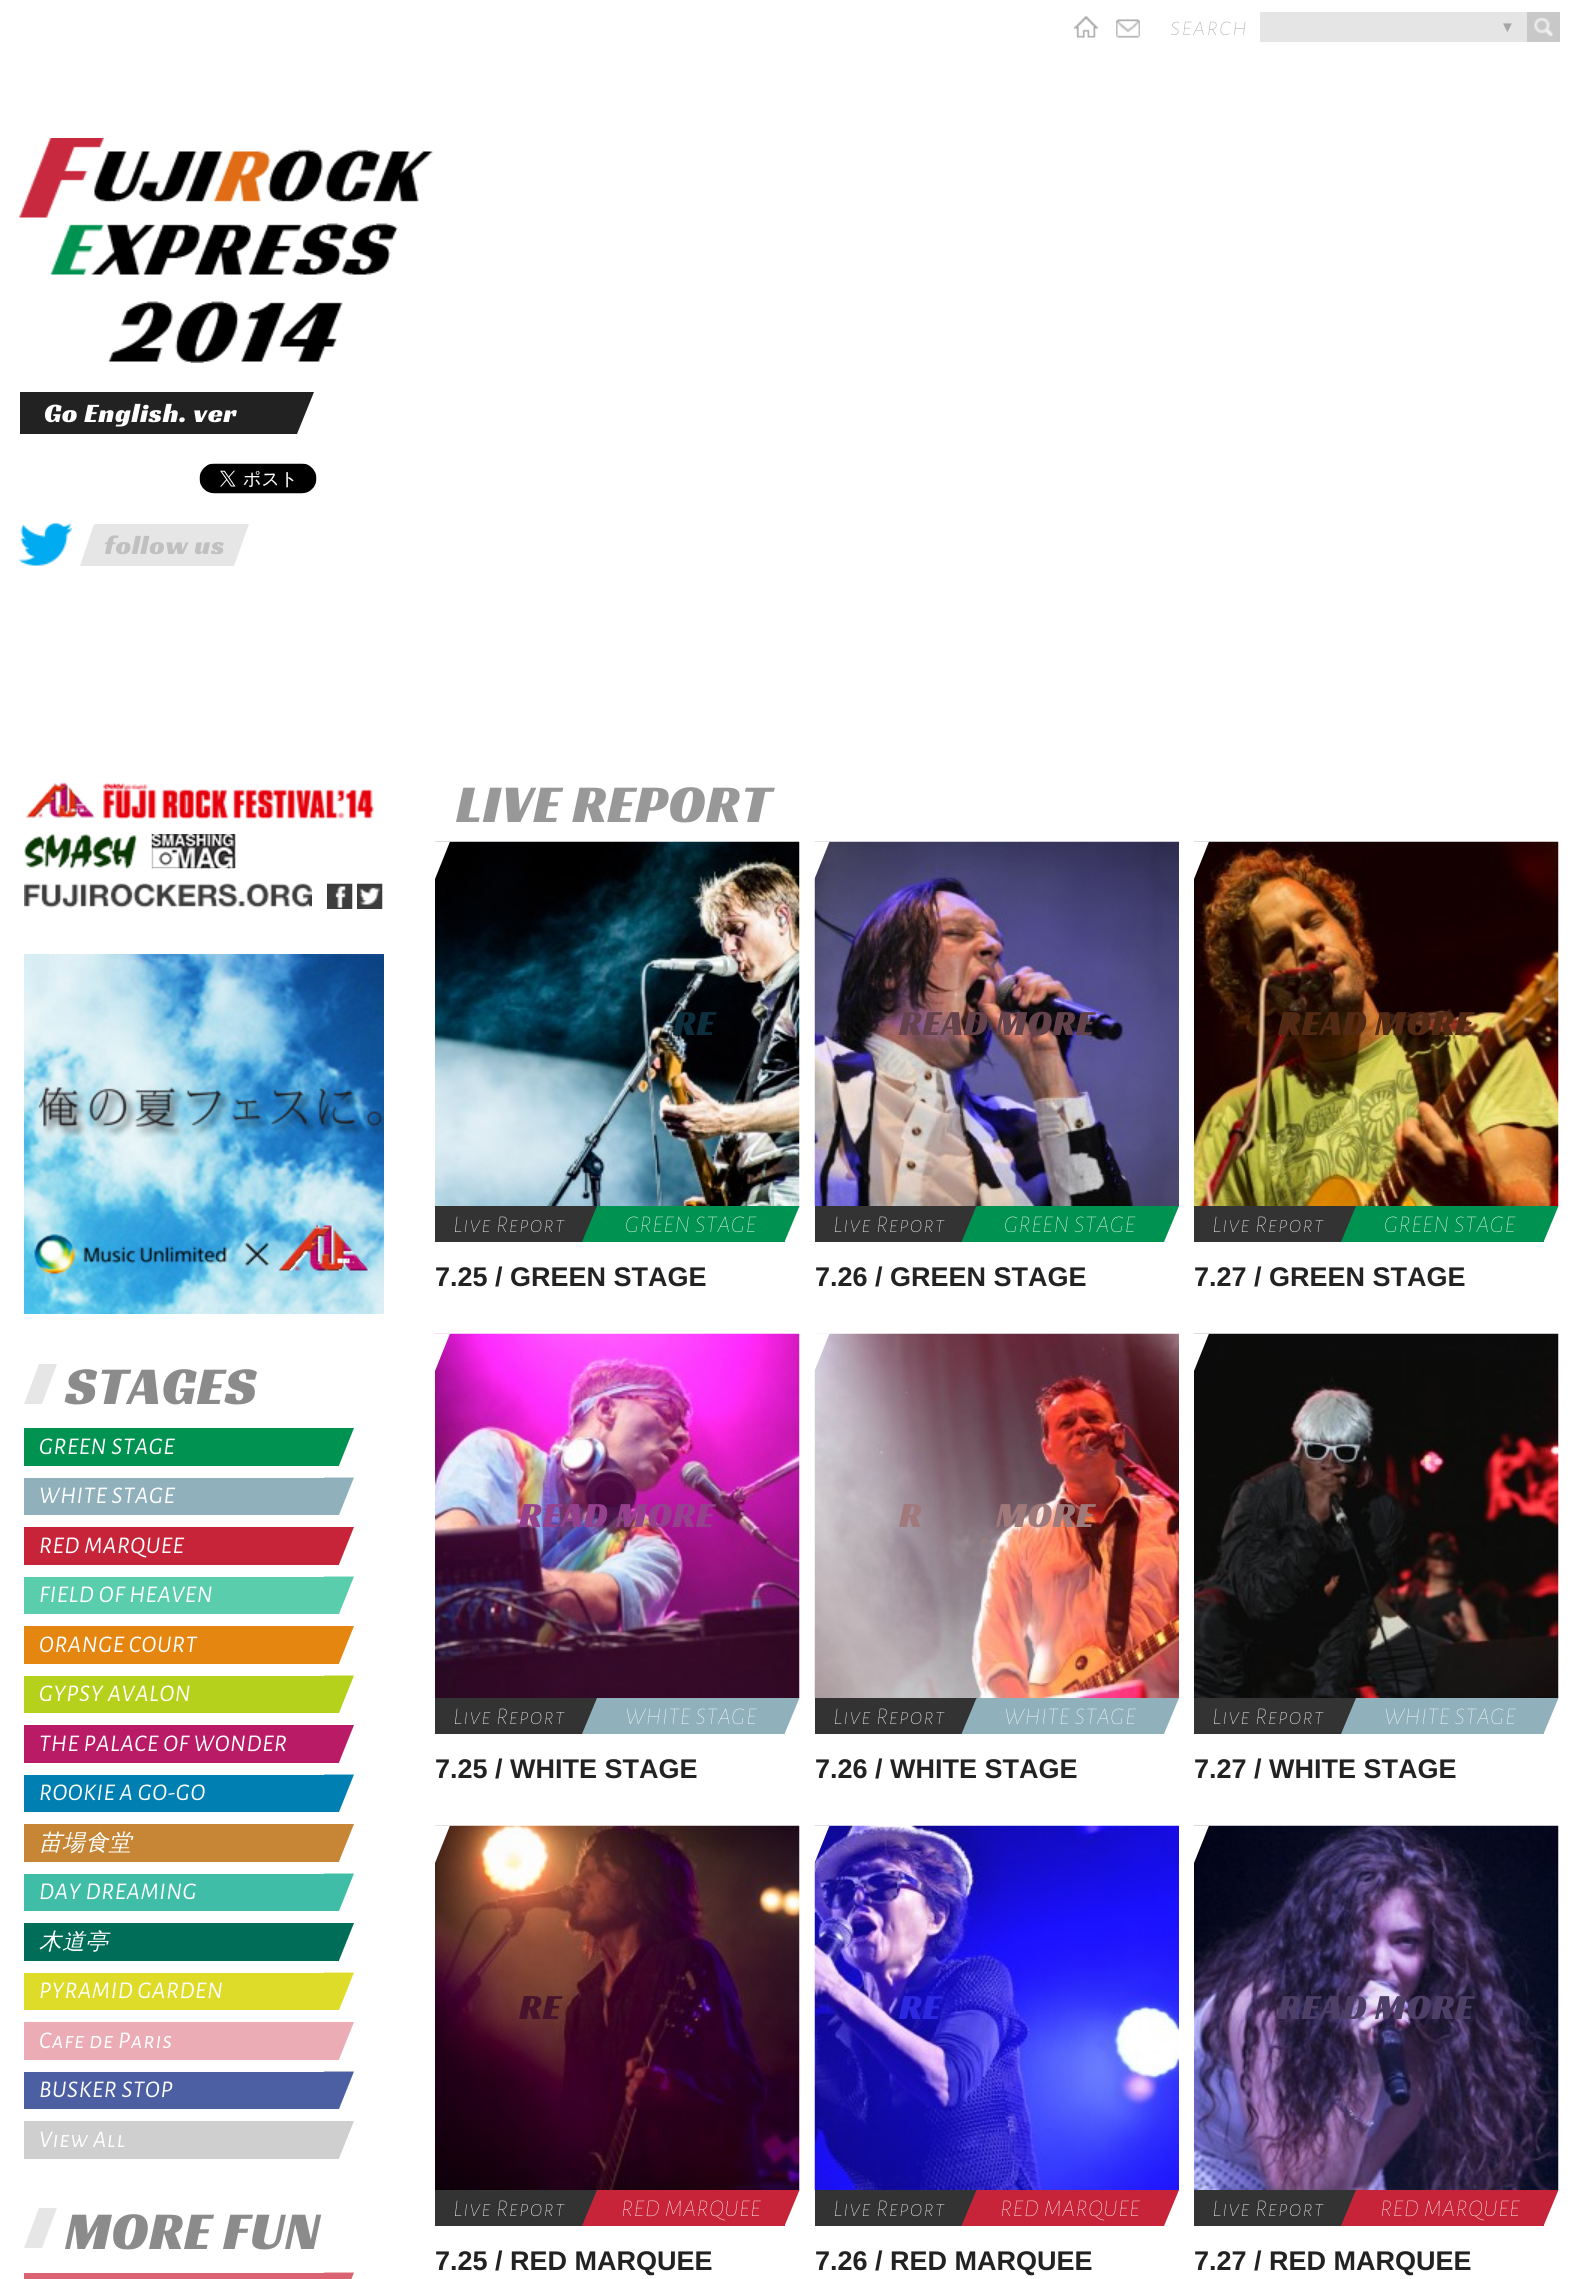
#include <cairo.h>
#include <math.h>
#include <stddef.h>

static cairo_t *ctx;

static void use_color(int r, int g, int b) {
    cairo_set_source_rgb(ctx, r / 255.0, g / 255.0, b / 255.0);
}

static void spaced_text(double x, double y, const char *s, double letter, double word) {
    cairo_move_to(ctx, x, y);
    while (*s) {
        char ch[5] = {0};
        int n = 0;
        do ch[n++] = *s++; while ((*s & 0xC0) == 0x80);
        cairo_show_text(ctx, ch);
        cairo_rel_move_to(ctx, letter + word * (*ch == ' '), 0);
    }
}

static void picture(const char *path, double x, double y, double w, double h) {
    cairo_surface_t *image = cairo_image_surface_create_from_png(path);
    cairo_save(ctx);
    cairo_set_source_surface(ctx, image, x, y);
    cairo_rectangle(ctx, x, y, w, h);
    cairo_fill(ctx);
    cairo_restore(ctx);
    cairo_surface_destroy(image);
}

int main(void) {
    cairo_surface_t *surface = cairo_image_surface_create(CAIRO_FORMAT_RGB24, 1583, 2279);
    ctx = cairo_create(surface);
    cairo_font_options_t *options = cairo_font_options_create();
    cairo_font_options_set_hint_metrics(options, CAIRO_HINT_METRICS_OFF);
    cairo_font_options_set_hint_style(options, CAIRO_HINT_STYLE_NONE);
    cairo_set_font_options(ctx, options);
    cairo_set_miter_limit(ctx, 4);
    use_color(255, 255, 255);
    cairo_paint(ctx);
    picture("img1.png", 1074, 16, 24, 22);
    picture("img2.png", 1116, 19, 24, 19);
    cairo_select_font_face(ctx, "Alegreya Sans SC ExtraLight", CAIRO_FONT_SLANT_ITALIC, CAIRO_FONT_WEIGHT_NORMAL);
    cairo_set_font_size(ctx, 27);
    use_color(166, 166, 166);
    spaced_text(1170, 35, "search", 0.75, 0);
    use_color(229, 229, 229);
    cairo_rectangle(ctx, 1260, 12, 267, 30);
    cairo_fill(ctx);
    picture("img3.png", 1527, 12, 33, 30);
    cairo_select_font_face(ctx, "Liberation Sans", CAIRO_FONT_SLANT_NORMAL, CAIRO_FONT_WEIGHT_NORMAL);
    cairo_set_font_size(ctx, 15);
    use_color(166, 166, 166);
    cairo_move_to(ctx, 1500, 32);
    cairo_show_text(ctx, "▼");
    picture("img4.png", 19, 138, 415, 225);
    use_color(34, 34, 34);
    cairo_rectangle(ctx, 20, 392, 277, 42);
    cairo_fill(ctx);
    cairo_select_font_face(ctx, "Racing Sans One", CAIRO_FONT_SLANT_NORMAL, CAIRO_FONT_WEIGHT_NORMAL);
    cairo_set_font_size(ctx, 27);
    use_color(255, 255, 255);
    spaced_text(44, 422, "Go English. ver", 0.75, 0);
    use_color(34, 34, 34);
    cairo_new_path(ctx);
    cairo_move_to(ctx, 280, 392);
    cairo_line_to(ctx, 314, 392);
    cairo_line_to(ctx, 297, 434);
    cairo_close_path(ctx);
    cairo_fill(ctx);
    picture("img5.png", 199, 463, 118, 31);
    picture("img6.png", 19, 523, 53, 43);
    use_color(230, 230, 230);
    cairo_rectangle(ctx, 95, 524, 139, 42);
    cairo_fill(ctx);
    use_color(192, 192, 192);
    spaced_text(104, 554, "follow us", 0.75, 0);
    use_color(230, 230, 230);
    cairo_new_path(ctx);
    cairo_move_to(ctx, 110, 566);
    cairo_line_to(ctx, 80, 566);
    cairo_line_to(ctx, 94, 524);
    cairo_close_path(ctx);
    cairo_fill(ctx);
    cairo_new_path(ctx);
    cairo_move_to(ctx, 219, 524);
    cairo_line_to(ctx, 249, 524);
    cairo_line_to(ctx, 234, 566);
    cairo_close_path(ctx);
    cairo_fill(ctx);
    picture("img7.png", 25, 782, 349, 37);
    picture("img8.png", 24, 834, 113, 35);
    picture("img9.png", 151, 834, 85, 35);
    picture("img10.png", 24, 883, 288, 25);
    picture("img11.png", 327, 883, 26, 26);
    picture("img12.png", 357, 883, 26, 26);
    picture("img13.png", 24, 954, 360, 360);
    cairo_new_path(ctx);
    cairo_move_to(ctx, 39, 1364);
    cairo_line_to(ctx, 57, 1364);
    cairo_line_to(ctx, 42, 1404);
    cairo_line_to(ctx, 24, 1404);
    cairo_close_path(ctx);
    cairo_fill(ctx);
    cairo_set_font_size(ctx, 54);
    use_color(139, 139, 139);
    spaced_text(65, 1404, "STAGES", 0.75, 0);
    use_color(0, 146, 80);
    cairo_rectangle(ctx, 24, 1428, 315, 38);
    cairo_fill(ctx);
    cairo_select_font_face(ctx, "Alegreya Sans SC", CAIRO_FONT_SLANT_ITALIC, CAIRO_FONT_WEIGHT_NORMAL);
    cairo_set_font_size(ctx, 24);
    use_color(255, 255, 255);
    spaced_text(39, 1454, "GREEN STAGE", 0.75, 0);
    use_color(0, 146, 80);
    cairo_new_path(ctx);
    cairo_move_to(ctx, 324, 1428);
    cairo_line_to(ctx, 354, 1428);
    cairo_line_to(ctx, 339, 1465.5);
    cairo_close_path(ctx);
    cairo_fill(ctx);
    use_color(144, 177, 187);
    cairo_rectangle(ctx, 24, 1478, 315, 37);
    cairo_fill(ctx);
    use_color(255, 255, 255);
    spaced_text(39, 1503, "WHITE STAGE", 0.75, 0);
    use_color(144, 177, 187);
    cairo_new_path(ctx);
    cairo_move_to(ctx, 324, 1477.5);
    cairo_line_to(ctx, 354, 1477.5);
    cairo_line_to(ctx, 339, 1515);
    cairo_close_path(ctx);
    cairo_fill(ctx);
    use_color(199, 36, 58);
    cairo_rectangle(ctx, 24, 1527, 315, 38);
    cairo_fill(ctx);
    use_color(255, 255, 255);
    spaced_text(39, 1553, "RED MARQUEE", 0.75, 0);
    use_color(199, 36, 58);
    cairo_new_path(ctx);
    cairo_move_to(ctx, 324, 1527);
    cairo_line_to(ctx, 354, 1527);
    cairo_line_to(ctx, 339, 1564.5);
    cairo_close_path(ctx);
    cairo_fill(ctx);
    use_color(90, 206, 172);
    cairo_rectangle(ctx, 24, 1577, 315, 37);
    cairo_fill(ctx);
    use_color(255, 255, 255);
    spaced_text(39, 1602, "FIELD OF HEAVEN", 0.75, 0);
    use_color(90, 206, 172);
    cairo_new_path(ctx);
    cairo_move_to(ctx, 324, 1576.5);
    cairo_line_to(ctx, 354, 1576.5);
    cairo_line_to(ctx, 339, 1614);
    cairo_close_path(ctx);
    cairo_fill(ctx);
    use_color(229, 134, 17);
    cairo_rectangle(ctx, 24, 1626, 315, 38);
    cairo_fill(ctx);
    use_color(255, 255, 255);
    spaced_text(39, 1652, "ORANGE COURT", 0.75, 0);
    use_color(229, 134, 17);
    cairo_new_path(ctx);
    cairo_move_to(ctx, 324, 1626);
    cairo_line_to(ctx, 354, 1626);
    cairo_line_to(ctx, 339, 1663.5);
    cairo_close_path(ctx);
    cairo_fill(ctx);
    use_color(182, 209, 27);
    cairo_rectangle(ctx, 24, 1676, 315, 37);
    cairo_fill(ctx);
    use_color(255, 255, 255);
    spaced_text(39, 1701, "GYPSY AVALON", 0.75, 0);
    use_color(182, 209, 27);
    cairo_new_path(ctx);
    cairo_move_to(ctx, 324, 1675.5);
    cairo_line_to(ctx, 354, 1675.5);
    cairo_line_to(ctx, 339, 1713);
    cairo_close_path(ctx);
    cairo_fill(ctx);
    use_color(185, 27, 103);
    cairo_rectangle(ctx, 24, 1725, 315, 38);
    cairo_fill(ctx);
    use_color(255, 255, 255);
    spaced_text(39, 1751, "THE PALACE OF WONDER", 0.75, 0);
    use_color(185, 27, 103);
    cairo_new_path(ctx);
    cairo_move_to(ctx, 324, 1725);
    cairo_line_to(ctx, 354, 1725);
    cairo_line_to(ctx, 339, 1762.5);
    cairo_close_path(ctx);
    cairo_fill(ctx);
    use_color(0, 128, 178);
    cairo_rectangle(ctx, 24, 1775, 315, 37);
    cairo_fill(ctx);
    use_color(255, 255, 255);
    spaced_text(39, 1800, "ROOKIE A GO-GO", 0.75, 0);
    use_color(0, 128, 178);
    cairo_new_path(ctx);
    cairo_move_to(ctx, 324, 1774.5);
    cairo_line_to(ctx, 354, 1774.5);
    cairo_line_to(ctx, 339, 1812);
    cairo_close_path(ctx);
    cairo_fill(ctx);
    use_color(198, 134, 54);
    cairo_rectangle(ctx, 24, 1824, 315, 38);
    cairo_fill(ctx);
    cairo_select_font_face(ctx, "WenQuanYi Zen Hei Medium", CAIRO_FONT_SLANT_ITALIC, CAIRO_FONT_WEIGHT_NORMAL);
    cairo_set_font_size(ctx, 22.5);
    use_color(255, 255, 255);
    spaced_text(39, 1850, "苗場食堂", 0.75, 0);
    use_color(198, 134, 54);
    cairo_new_path(ctx);
    cairo_move_to(ctx, 324, 1824);
    cairo_line_to(ctx, 354, 1824);
    cairo_line_to(ctx, 339, 1861.5);
    cairo_close_path(ctx);
    cairo_fill(ctx);
    use_color(63, 189, 166);
    cairo_rectangle(ctx, 24, 1874, 315, 37);
    cairo_fill(ctx);
    cairo_select_font_face(ctx, "Alegreya Sans SC", CAIRO_FONT_SLANT_ITALIC, CAIRO_FONT_WEIGHT_NORMAL);
    cairo_set_font_size(ctx, 24);
    use_color(255, 255, 255);
    spaced_text(39, 1899, "DAY DREAMING", 0.75, 0);
    use_color(63, 189, 166);
    cairo_new_path(ctx);
    cairo_move_to(ctx, 324, 1873.5);
    cairo_line_to(ctx, 354, 1873.5);
    cairo_line_to(ctx, 339, 1911);
    cairo_close_path(ctx);
    cairo_fill(ctx);
    use_color(0, 109, 89);
    cairo_rectangle(ctx, 24, 1923, 315, 38);
    cairo_fill(ctx);
    cairo_select_font_face(ctx, "WenQuanYi Zen Hei Medium", CAIRO_FONT_SLANT_ITALIC, CAIRO_FONT_WEIGHT_NORMAL);
    cairo_set_font_size(ctx, 22.5);
    use_color(255, 255, 255);
    spaced_text(39, 1949, "木道亭", 0.75, 0);
    use_color(0, 109, 89);
    cairo_new_path(ctx);
    cairo_move_to(ctx, 324, 1923);
    cairo_line_to(ctx, 354, 1923);
    cairo_line_to(ctx, 339, 1960.5);
    cairo_close_path(ctx);
    cairo_fill(ctx);
    use_color(222, 220, 40);
    cairo_rectangle(ctx, 24, 1973, 315, 37);
    cairo_fill(ctx);
    cairo_select_font_face(ctx, "Alegreya Sans SC", CAIRO_FONT_SLANT_ITALIC, CAIRO_FONT_WEIGHT_NORMAL);
    cairo_set_font_size(ctx, 24);
    use_color(255, 255, 255);
    spaced_text(39, 1998, "PYRAMID GARDEN", 0.75, 0);
    use_color(222, 220, 40);
    cairo_new_path(ctx);
    cairo_move_to(ctx, 324, 1972.5);
    cairo_line_to(ctx, 354, 1972.5);
    cairo_line_to(ctx, 339, 2010);
    cairo_close_path(ctx);
    cairo_fill(ctx);
    use_color(236, 172, 181);
    cairo_rectangle(ctx, 24, 2022, 315, 38);
    cairo_fill(ctx);
    use_color(255, 255, 255);
    spaced_text(39, 2048, "Cafe de Paris", 0.75, 0);
    use_color(236, 172, 181);
    cairo_new_path(ctx);
    cairo_move_to(ctx, 324, 2022);
    cairo_line_to(ctx, 354, 2022);
    cairo_line_to(ctx, 339, 2059.5);
    cairo_close_path(ctx);
    cairo_fill(ctx);
    use_color(77, 95, 163);
    cairo_rectangle(ctx, 24, 2072, 315, 37);
    cairo_fill(ctx);
    use_color(255, 255, 255);
    spaced_text(39, 2097, "BUSKER STOP", 0.75, 0);
    use_color(77, 95, 163);
    cairo_new_path(ctx);
    cairo_move_to(ctx, 324, 2071.5);
    cairo_line_to(ctx, 354, 2071.5);
    cairo_line_to(ctx, 339, 2109);
    cairo_close_path(ctx);
    cairo_fill(ctx);
    use_color(207, 207, 207);
    cairo_rectangle(ctx, 24, 2121, 315, 38);
    cairo_fill(ctx);
    use_color(255, 255, 255);
    spaced_text(39, 2147, "View All", 0.75, 0);
    use_color(207, 207, 207);
    cairo_new_path(ctx);
    cairo_move_to(ctx, 324, 2121);
    cairo_line_to(ctx, 354, 2121);
    cairo_line_to(ctx, 339, 2158.5);
    cairo_close_path(ctx);
    cairo_fill(ctx);
    use_color(230, 230, 230);
    cairo_new_path(ctx);
    cairo_move_to(ctx, 39, 2208);
    cairo_line_to(ctx, 57, 2208);
    cairo_line_to(ctx, 42, 2248);
    cairo_line_to(ctx, 24, 2248);
    cairo_close_path(ctx);
    cairo_fill(ctx);
    cairo_select_font_face(ctx, "Racing Sans One", CAIRO_FONT_SLANT_NORMAL, CAIRO_FONT_WEIGHT_NORMAL);
    cairo_set_font_size(ctx, 54);
    use_color(139, 139, 139);
    spaced_text(65, 2249, "MORE FUN", 0.75, 0);
    use_color(218, 98, 114);
    cairo_rectangle(ctx, 24, 2273, 303, 6);
    cairo_fill(ctx);
    cairo_new_path(ctx);
    cairo_move_to(ctx, 324, 2272.5);
    cairo_line_to(ctx, 354, 2272.5);
    cairo_line_to(ctx, 339, 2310);
    cairo_close_path(ctx);
    cairo_fill(ctx);
    use_color(152, 152, 152);
    spaced_text(456, 822, "LIVE REPORT", 0.75, 0);
    picture("img14.png", 435, 841, 365, 365);
    use_color(255, 255, 255);
    cairo_new_path(ctx);
    cairo_move_to(ctx, 420, 841.5);
    cairo_line_to(ctx, 450, 841.5);
    cairo_line_to(ctx, 435, 879);
    cairo_close_path(ctx);
    cairo_fill(ctx);
    cairo_set_font_size(ctx, 36);
    use_color(13, 47, 61);
    spaced_text(673, 1035, "RE", 0.75, 0);
    use_color(51, 51, 51);
    cairo_rectangle(ctx, 435, 1206, 148, 36);
    cairo_fill(ctx);
    cairo_select_font_face(ctx, "Alegreya Sans SC ExtraLight", CAIRO_FONT_SLANT_ITALIC, CAIRO_FONT_WEIGHT_NORMAL);
    cairo_set_font_size(ctx, 24);
    use_color(255, 255, 255);
    spaced_text(453, 1232, "Live Report", 0.75, 0);
    use_color(51, 51, 51);
    cairo_new_path(ctx);
    cairo_move_to(ctx, 568.5, 1206);
    cairo_line_to(ctx, 598.5, 1206);
    cairo_line_to(ctx, 583.5, 1242);
    cairo_close_path(ctx);
    cairo_fill(ctx);
    use_color(0, 146, 80);
    cairo_rectangle(ctx, 597, 1206, 188, 36);
    cairo_fill(ctx);
    cairo_new_path(ctx);
    cairo_move_to(ctx, 612, 1242);
    cairo_line_to(ctx, 582, 1242);
    cairo_line_to(ctx, 597, 1206);
    cairo_close_path(ctx);
    cairo_fill(ctx);
    use_color(255, 255, 255);
    spaced_text(625, 1232, "GREEN STAGE", 0.75, 0);
    use_color(0, 146, 80);
    cairo_new_path(ctx);
    cairo_move_to(ctx, 769.5, 1206);
    cairo_line_to(ctx, 799.5, 1206);
    cairo_line_to(ctx, 784.5, 1242);
    cairo_close_path(ctx);
    cairo_fill(ctx);
    cairo_select_font_face(ctx, "Liberation Sans", CAIRO_FONT_SLANT_NORMAL, CAIRO_FONT_WEIGHT_BOLD);
    cairo_set_font_size(ctx, 27);
    use_color(34, 34, 34);
    cairo_move_to(ctx, 435, 1286);
    cairo_show_text(ctx, "7.25 / GREEN STAGE");
    picture("img15.png", 814, 841, 365, 365);
    use_color(255, 255, 255);
    cairo_new_path(ctx);
    cairo_move_to(ctx, 799.5, 841.5);
    cairo_line_to(ctx, 829.5, 841.5);
    cairo_line_to(ctx, 814.5, 879);
    cairo_close_path(ctx);
    cairo_fill(ctx);
    cairo_select_font_face(ctx, "Racing Sans One", CAIRO_FONT_SLANT_NORMAL, CAIRO_FONT_WEIGHT_NORMAL);
    cairo_set_font_size(ctx, 36);
    use_color(101, 67, 76);
    spaced_text(899, 1035, "READ MORE", 0.75, 0);
    use_color(51, 51, 51);
    cairo_rectangle(ctx, 815, 1206, 148, 36);
    cairo_fill(ctx);
    cairo_select_font_face(ctx, "Alegreya Sans SC ExtraLight", CAIRO_FONT_SLANT_ITALIC, CAIRO_FONT_WEIGHT_NORMAL);
    cairo_set_font_size(ctx, 24);
    use_color(255, 255, 255);
    spaced_text(833, 1232, "Live Report", 0.75, 0);
    use_color(51, 51, 51);
    cairo_new_path(ctx);
    cairo_move_to(ctx, 948, 1206);
    cairo_line_to(ctx, 978, 1206);
    cairo_line_to(ctx, 963, 1242);
    cairo_close_path(ctx);
    cairo_fill(ctx);
    use_color(0, 146, 80);
    cairo_rectangle(ctx, 977, 1206, 187, 36);
    cairo_fill(ctx);
    cairo_new_path(ctx);
    cairo_move_to(ctx, 991.5, 1242);
    cairo_line_to(ctx, 961.5, 1242);
    cairo_line_to(ctx, 976.5, 1206);
    cairo_close_path(ctx);
    cairo_fill(ctx);
    use_color(255, 255, 255);
    spaced_text(1004, 1232, "GREEN STAGE", 0.75, 0);
    use_color(0, 146, 80);
    cairo_new_path(ctx);
    cairo_move_to(ctx, 1149, 1206);
    cairo_line_to(ctx, 1179, 1206);
    cairo_line_to(ctx, 1164, 1242);
    cairo_close_path(ctx);
    cairo_fill(ctx);
    cairo_select_font_face(ctx, "Liberation Sans", CAIRO_FONT_SLANT_NORMAL, CAIRO_FONT_WEIGHT_BOLD);
    cairo_set_font_size(ctx, 27);
    use_color(34, 34, 34);
    cairo_move_to(ctx, 815, 1286);
    cairo_show_text(ctx, "7.26 / GREEN STAGE");
    picture("img16.png", 1194, 841, 365, 365);
    use_color(255, 255, 255);
    cairo_new_path(ctx);
    cairo_move_to(ctx, 1179, 841.5);
    cairo_line_to(ctx, 1209, 841.5);
    cairo_line_to(ctx, 1194, 879);
    cairo_close_path(ctx);
    cairo_fill(ctx);
    cairo_select_font_face(ctx, "Racing Sans One", CAIRO_FONT_SLANT_NORMAL, CAIRO_FONT_WEIGHT_NORMAL);
    cairo_set_font_size(ctx, 36);
    use_color(82, 41, 18);
    spaced_text(1278, 1035, "READ MORE", 0.75, 0);
    use_color(51, 51, 51);
    cairo_rectangle(ctx, 1194, 1206, 148, 36);
    cairo_fill(ctx);
    cairo_select_font_face(ctx, "Alegreya Sans SC ExtraLight", CAIRO_FONT_SLANT_ITALIC, CAIRO_FONT_WEIGHT_NORMAL);
    cairo_set_font_size(ctx, 24);
    use_color(255, 255, 255);
    spaced_text(1212, 1232, "Live Report", 0.75, 0);
    use_color(51, 51, 51);
    cairo_new_path(ctx);
    cairo_move_to(ctx, 1327.5, 1206);
    cairo_line_to(ctx, 1357.5, 1206);
    cairo_line_to(ctx, 1342.5, 1242);
    cairo_close_path(ctx);
    cairo_fill(ctx);
    use_color(0, 146, 80);
    cairo_rectangle(ctx, 1356, 1206, 188, 36);
    cairo_fill(ctx);
    cairo_new_path(ctx);
    cairo_move_to(ctx, 1371, 1242);
    cairo_line_to(ctx, 1341, 1242);
    cairo_line_to(ctx, 1356, 1206);
    cairo_close_path(ctx);
    cairo_fill(ctx);
    use_color(255, 255, 255);
    spaced_text(1384, 1232, "GREEN STAGE", 0.75, 0);
    use_color(0, 146, 80);
    cairo_new_path(ctx);
    cairo_move_to(ctx, 1528.5, 1206);
    cairo_line_to(ctx, 1558.5, 1206);
    cairo_line_to(ctx, 1543.5, 1242);
    cairo_close_path(ctx);
    cairo_fill(ctx);
    cairo_select_font_face(ctx, "Liberation Sans", CAIRO_FONT_SLANT_NORMAL, CAIRO_FONT_WEIGHT_BOLD);
    cairo_set_font_size(ctx, 27);
    use_color(34, 34, 34);
    cairo_move_to(ctx, 1194, 1286);
    cairo_show_text(ctx, "7.27 / GREEN STAGE");
    picture("img17.png", 435, 1333, 365, 365);
    use_color(255, 255, 255);
    cairo_new_path(ctx);
    cairo_move_to(ctx, 420, 1333.5);
    cairo_line_to(ctx, 450, 1333.5);
    cairo_line_to(ctx, 435, 1371);
    cairo_close_path(ctx);
    cairo_fill(ctx);
    cairo_select_font_face(ctx, "Racing Sans One", CAIRO_FONT_SLANT_NORMAL, CAIRO_FONT_WEIGHT_NORMAL);
    cairo_set_font_size(ctx, 36);
    use_color(150, 65, 142);
    spaced_text(519, 1527, "READ MORE", 0.75, 0);
    use_color(51, 51, 51);
    cairo_rectangle(ctx, 435, 1698, 148, 36);
    cairo_fill(ctx);
    cairo_select_font_face(ctx, "Alegreya Sans SC ExtraLight", CAIRO_FONT_SLANT_ITALIC, CAIRO_FONT_WEIGHT_NORMAL);
    cairo_set_font_size(ctx, 24);
    use_color(255, 255, 255);
    spaced_text(453, 1724, "Live Report", 0.75, 0);
    use_color(51, 51, 51);
    cairo_new_path(ctx);
    cairo_move_to(ctx, 568.5, 1698);
    cairo_line_to(ctx, 598.5, 1698);
    cairo_line_to(ctx, 583.5, 1734);
    cairo_close_path(ctx);
    cairo_fill(ctx);
    use_color(144, 177, 187);
    cairo_rectangle(ctx, 597, 1698, 188, 36);
    cairo_fill(ctx);
    cairo_new_path(ctx);
    cairo_move_to(ctx, 612, 1734);
    cairo_line_to(ctx, 582, 1734);
    cairo_line_to(ctx, 597, 1698);
    cairo_close_path(ctx);
    cairo_fill(ctx);
    use_color(255, 255, 255);
    spaced_text(625, 1724, "WHITE STAGE", 0.75, 0);
    use_color(144, 177, 187);
    cairo_new_path(ctx);
    cairo_move_to(ctx, 769.5, 1698);
    cairo_line_to(ctx, 799.5, 1698);
    cairo_line_to(ctx, 784.5, 1734);
    cairo_close_path(ctx);
    cairo_fill(ctx);
    cairo_select_font_face(ctx, "Liberation Sans", CAIRO_FONT_SLANT_NORMAL, CAIRO_FONT_WEIGHT_BOLD);
    cairo_set_font_size(ctx, 27);
    use_color(34, 34, 34);
    cairo_move_to(ctx, 435, 1778);
    cairo_show_text(ctx, "7.25 / WHITE STAGE");
    picture("img18.png", 814, 1333, 365, 365);
    use_color(255, 255, 255);
    cairo_new_path(ctx);
    cairo_move_to(ctx, 799.5, 1333.5);
    cairo_line_to(ctx, 829.5, 1333.5);
    cairo_line_to(ctx, 814.5, 1371);
    cairo_close_path(ctx);
    cairo_fill(ctx);
    cairo_select_font_face(ctx, "Racing Sans One", CAIRO_FONT_SLANT_NORMAL, CAIRO_FONT_WEIGHT_NORMAL);
    cairo_set_font_size(ctx, 36);
    use_color(160, 121, 123);
    spaced_text(899, 1527, "R", 0.75, 0);
    spaced_text(996, 1527, "MORE", 0.75, 0);
    use_color(51, 51, 51);
    cairo_rectangle(ctx, 815, 1698, 148, 36);
    cairo_fill(ctx);
    cairo_select_font_face(ctx, "Alegreya Sans SC ExtraLight", CAIRO_FONT_SLANT_ITALIC, CAIRO_FONT_WEIGHT_NORMAL);
    cairo_set_font_size(ctx, 24);
    use_color(255, 255, 255);
    spaced_text(833, 1724, "Live Report", 0.75, 0);
    use_color(51, 51, 51);
    cairo_new_path(ctx);
    cairo_move_to(ctx, 948, 1698);
    cairo_line_to(ctx, 978, 1698);
    cairo_line_to(ctx, 963, 1734);
    cairo_close_path(ctx);
    cairo_fill(ctx);
    use_color(144, 177, 187);
    cairo_rectangle(ctx, 977, 1698, 187, 36);
    cairo_fill(ctx);
    cairo_new_path(ctx);
    cairo_move_to(ctx, 991.5, 1734);
    cairo_line_to(ctx, 961.5, 1734);
    cairo_line_to(ctx, 976.5, 1698);
    cairo_close_path(ctx);
    cairo_fill(ctx);
    use_color(255, 255, 255);
    spaced_text(1004, 1724, "WHITE STAGE", 0.75, 0);
    use_color(144, 177, 187);
    cairo_new_path(ctx);
    cairo_move_to(ctx, 1149, 1698);
    cairo_line_to(ctx, 1179, 1698);
    cairo_line_to(ctx, 1164, 1734);
    cairo_close_path(ctx);
    cairo_fill(ctx);
    cairo_select_font_face(ctx, "Liberation Sans", CAIRO_FONT_SLANT_NORMAL, CAIRO_FONT_WEIGHT_BOLD);
    cairo_set_font_size(ctx, 27);
    use_color(34, 34, 34);
    cairo_move_to(ctx, 815, 1778);
    cairo_show_text(ctx, "7.26 / WHITE STAGE");
    picture("img19.png", 1194, 1333, 365, 365);
    use_color(255, 255, 255);
    cairo_new_path(ctx);
    cairo_move_to(ctx, 1179, 1333.5);
    cairo_line_to(ctx, 1209, 1333.5);
    cairo_line_to(ctx, 1194, 1371);
    cairo_close_path(ctx);
    cairo_fill(ctx);
    use_color(51, 51, 51);
    cairo_rectangle(ctx, 1194, 1698, 148, 36);
    cairo_fill(ctx);
    cairo_select_font_face(ctx, "Alegreya Sans SC ExtraLight", CAIRO_FONT_SLANT_ITALIC, CAIRO_FONT_WEIGHT_NORMAL);
    cairo_set_font_size(ctx, 24);
    use_color(255, 255, 255);
    spaced_text(1212, 1724, "Live Report", 0.75, 0);
    use_color(51, 51, 51);
    cairo_new_path(ctx);
    cairo_move_to(ctx, 1327.5, 1698);
    cairo_line_to(ctx, 1357.5, 1698);
    cairo_line_to(ctx, 1342.5, 1734);
    cairo_close_path(ctx);
    cairo_fill(ctx);
    use_color(144, 177, 187);
    cairo_rectangle(ctx, 1356, 1698, 188, 36);
    cairo_fill(ctx);
    cairo_new_path(ctx);
    cairo_move_to(ctx, 1371, 1734);
    cairo_line_to(ctx, 1341, 1734);
    cairo_line_to(ctx, 1356, 1698);
    cairo_close_path(ctx);
    cairo_fill(ctx);
    use_color(255, 255, 255);
    spaced_text(1384, 1724, "WHITE STAGE", 0.75, 0);
    use_color(144, 177, 187);
    cairo_new_path(ctx);
    cairo_move_to(ctx, 1528.5, 1698);
    cairo_line_to(ctx, 1558.5, 1698);
    cairo_line_to(ctx, 1543.5, 1734);
    cairo_close_path(ctx);
    cairo_fill(ctx);
    cairo_select_font_face(ctx, "Liberation Sans", CAIRO_FONT_SLANT_NORMAL, CAIRO_FONT_WEIGHT_BOLD);
    cairo_set_font_size(ctx, 27);
    use_color(34, 34, 34);
    cairo_move_to(ctx, 1194, 1778);
    cairo_show_text(ctx, "7.27 / WHITE STAGE");
    picture("img20.png", 435, 1825, 365, 365);
    use_color(255, 255, 255);
    cairo_new_path(ctx);
    cairo_move_to(ctx, 420, 1825.5);
    cairo_line_to(ctx, 450, 1825.5);
    cairo_line_to(ctx, 435, 1863);
    cairo_close_path(ctx);
    cairo_fill(ctx);
    cairo_select_font_face(ctx, "Racing Sans One", CAIRO_FONT_SLANT_NORMAL, CAIRO_FONT_WEIGHT_NORMAL);
    cairo_set_font_size(ctx, 36);
    use_color(71, 19, 44);
    spaced_text(519, 2019, "RE", 0.75, 0);
    use_color(51, 51, 51);
    cairo_rectangle(ctx, 435, 2190, 148, 36);
    cairo_fill(ctx);
    cairo_select_font_face(ctx, "Alegreya Sans SC ExtraLight", CAIRO_FONT_SLANT_ITALIC, CAIRO_FONT_WEIGHT_NORMAL);
    cairo_set_font_size(ctx, 24);
    use_color(255, 255, 255);
    spaced_text(453, 2216, "Live Report", 0.75, 0);
    use_color(51, 51, 51);
    cairo_new_path(ctx);
    cairo_move_to(ctx, 568.5, 2190);
    cairo_line_to(ctx, 598.5, 2190);
    cairo_line_to(ctx, 583.5, 2226);
    cairo_close_path(ctx);
    cairo_fill(ctx);
    use_color(199, 36, 58);
    cairo_rectangle(ctx, 597, 2190, 188, 36);
    cairo_fill(ctx);
    cairo_new_path(ctx);
    cairo_move_to(ctx, 612, 2226);
    cairo_line_to(ctx, 582, 2226);
    cairo_line_to(ctx, 597, 2190);
    cairo_close_path(ctx);
    cairo_fill(ctx);
    use_color(255, 255, 255);
    spaced_text(621, 2216, "RED MARQUEE", 0.75, 0);
    use_color(199, 36, 58);
    cairo_new_path(ctx);
    cairo_move_to(ctx, 769.5, 2190);
    cairo_line_to(ctx, 799.5, 2190);
    cairo_line_to(ctx, 784.5, 2226);
    cairo_close_path(ctx);
    cairo_fill(ctx);
    cairo_select_font_face(ctx, "Liberation Sans", CAIRO_FONT_SLANT_NORMAL, CAIRO_FONT_WEIGHT_BOLD);
    cairo_set_font_size(ctx, 27);
    use_color(34, 34, 34);
    cairo_move_to(ctx, 435, 2270);
    cairo_show_text(ctx, "7.25 / RED MARQUEE");
    picture("img21.png", 814, 1825, 365, 365);
    use_color(255, 255, 255);
    cairo_new_path(ctx);
    cairo_move_to(ctx, 799.5, 1825.5);
    cairo_line_to(ctx, 829.5, 1825.5);
    cairo_line_to(ctx, 814.5, 1863);
    cairo_close_path(ctx);
    cairo_fill(ctx);
    cairo_select_font_face(ctx, "Racing Sans One", CAIRO_FONT_SLANT_NORMAL, CAIRO_FONT_WEIGHT_NORMAL);
    cairo_set_font_size(ctx, 36);
    use_color(45, 41, 225);
    spaced_text(899, 2019, "RE", 0.75, 0);
    use_color(51, 51, 51);
    cairo_rectangle(ctx, 815, 2190, 148, 36);
    cairo_fill(ctx);
    cairo_select_font_face(ctx, "Alegreya Sans SC ExtraLight", CAIRO_FONT_SLANT_ITALIC, CAIRO_FONT_WEIGHT_NORMAL);
    cairo_set_font_size(ctx, 24);
    use_color(255, 255, 255);
    spaced_text(833, 2216, "Live Report", 0.75, 0);
    use_color(51, 51, 51);
    cairo_new_path(ctx);
    cairo_move_to(ctx, 948, 2190);
    cairo_line_to(ctx, 978, 2190);
    cairo_line_to(ctx, 963, 2226);
    cairo_close_path(ctx);
    cairo_fill(ctx);
    use_color(199, 36, 58);
    cairo_rectangle(ctx, 977, 2190, 187, 36);
    cairo_fill(ctx);
    cairo_new_path(ctx);
    cairo_move_to(ctx, 991.5, 2226);
    cairo_line_to(ctx, 961.5, 2226);
    cairo_line_to(ctx, 976.5, 2190);
    cairo_close_path(ctx);
    cairo_fill(ctx);
    use_color(255, 255, 255);
    spaced_text(1000, 2216, "RED MARQUEE", 0.75, 0);
    use_color(199, 36, 58);
    cairo_new_path(ctx);
    cairo_move_to(ctx, 1149, 2190);
    cairo_line_to(ctx, 1179, 2190);
    cairo_line_to(ctx, 1164, 2226);
    cairo_close_path(ctx);
    cairo_fill(ctx);
    cairo_select_font_face(ctx, "Liberation Sans", CAIRO_FONT_SLANT_NORMAL, CAIRO_FONT_WEIGHT_BOLD);
    cairo_set_font_size(ctx, 27);
    use_color(34, 34, 34);
    cairo_move_to(ctx, 815, 2270);
    cairo_show_text(ctx, "7.26 / RED MARQUEE");
    picture("img22.png", 1194, 1825, 365, 365);
    use_color(255, 255, 255);
    cairo_new_path(ctx);
    cairo_move_to(ctx, 1179, 1825.5);
    cairo_line_to(ctx, 1209, 1825.5);
    cairo_line_to(ctx, 1194, 1863);
    cairo_close_path(ctx);
    cairo_fill(ctx);
    cairo_select_font_face(ctx, "Racing Sans One", CAIRO_FONT_SLANT_NORMAL, CAIRO_FONT_WEIGHT_NORMAL);
    cairo_set_font_size(ctx, 36);
    use_color(77, 63, 102);
    spaced_text(1278, 2019, "READ MORE", 0.75, 0);
    use_color(51, 51, 51);
    cairo_rectangle(ctx, 1194, 2190, 148, 36);
    cairo_fill(ctx);
    cairo_select_font_face(ctx, "Alegreya Sans SC ExtraLight", CAIRO_FONT_SLANT_ITALIC, CAIRO_FONT_WEIGHT_NORMAL);
    cairo_set_font_size(ctx, 24);
    use_color(255, 255, 255);
    spaced_text(1212, 2216, "Live Report", 0.75, 0);
    use_color(51, 51, 51);
    cairo_new_path(ctx);
    cairo_move_to(ctx, 1327.5, 2190);
    cairo_line_to(ctx, 1357.5, 2190);
    cairo_line_to(ctx, 1342.5, 2226);
    cairo_close_path(ctx);
    cairo_fill(ctx);
    use_color(199, 36, 58);
    cairo_rectangle(ctx, 1356, 2190, 188, 36);
    cairo_fill(ctx);
    cairo_new_path(ctx);
    cairo_move_to(ctx, 1371, 2226);
    cairo_line_to(ctx, 1341, 2226);
    cairo_line_to(ctx, 1356, 2190);
    cairo_close_path(ctx);
    cairo_fill(ctx);
    use_color(255, 255, 255);
    spaced_text(1380, 2216, "RED MARQUEE", 0.75, 0);
    use_color(199, 36, 58);
    cairo_new_path(ctx);
    cairo_move_to(ctx, 1528.5, 2190);
    cairo_line_to(ctx, 1558.5, 2190);
    cairo_line_to(ctx, 1543.5, 2226);
    cairo_close_path(ctx);
    cairo_fill(ctx);
    cairo_select_font_face(ctx, "Liberation Sans", CAIRO_FONT_SLANT_NORMAL, CAIRO_FONT_WEIGHT_BOLD);
    cairo_set_font_size(ctx, 27);
    use_color(34, 34, 34);
    cairo_move_to(ctx, 1194, 2270);
    cairo_show_text(ctx, "7.27 / RED MARQUEE");
    cairo_surface_write_to_png(surface, "result.png");
    cairo_font_options_destroy(options);
    cairo_destroy(ctx);
    cairo_surface_destroy(surface);
    return 0;
}
